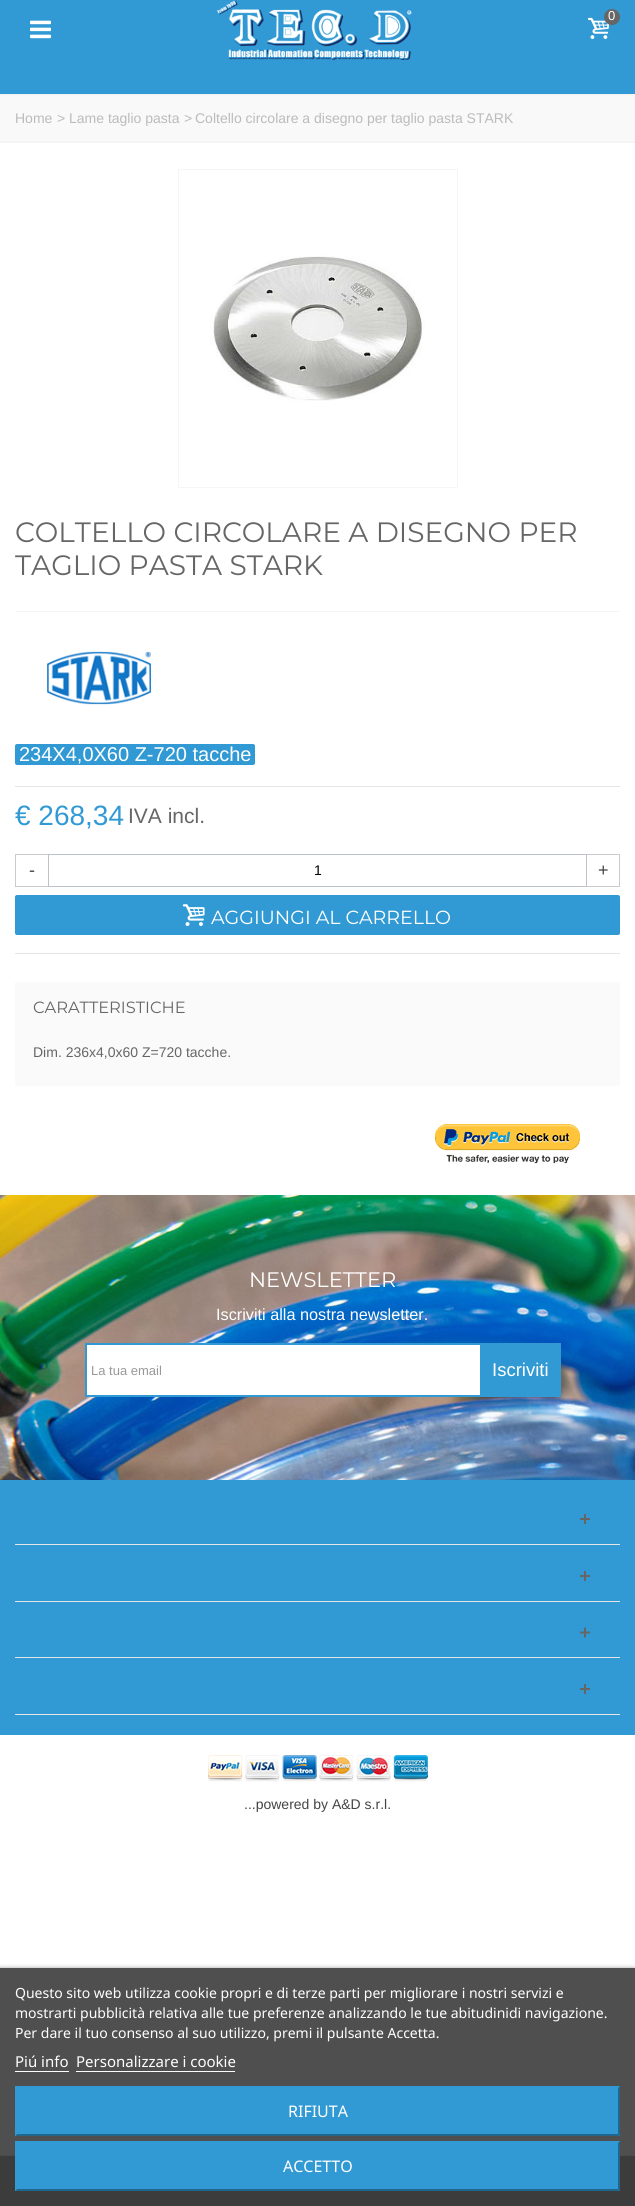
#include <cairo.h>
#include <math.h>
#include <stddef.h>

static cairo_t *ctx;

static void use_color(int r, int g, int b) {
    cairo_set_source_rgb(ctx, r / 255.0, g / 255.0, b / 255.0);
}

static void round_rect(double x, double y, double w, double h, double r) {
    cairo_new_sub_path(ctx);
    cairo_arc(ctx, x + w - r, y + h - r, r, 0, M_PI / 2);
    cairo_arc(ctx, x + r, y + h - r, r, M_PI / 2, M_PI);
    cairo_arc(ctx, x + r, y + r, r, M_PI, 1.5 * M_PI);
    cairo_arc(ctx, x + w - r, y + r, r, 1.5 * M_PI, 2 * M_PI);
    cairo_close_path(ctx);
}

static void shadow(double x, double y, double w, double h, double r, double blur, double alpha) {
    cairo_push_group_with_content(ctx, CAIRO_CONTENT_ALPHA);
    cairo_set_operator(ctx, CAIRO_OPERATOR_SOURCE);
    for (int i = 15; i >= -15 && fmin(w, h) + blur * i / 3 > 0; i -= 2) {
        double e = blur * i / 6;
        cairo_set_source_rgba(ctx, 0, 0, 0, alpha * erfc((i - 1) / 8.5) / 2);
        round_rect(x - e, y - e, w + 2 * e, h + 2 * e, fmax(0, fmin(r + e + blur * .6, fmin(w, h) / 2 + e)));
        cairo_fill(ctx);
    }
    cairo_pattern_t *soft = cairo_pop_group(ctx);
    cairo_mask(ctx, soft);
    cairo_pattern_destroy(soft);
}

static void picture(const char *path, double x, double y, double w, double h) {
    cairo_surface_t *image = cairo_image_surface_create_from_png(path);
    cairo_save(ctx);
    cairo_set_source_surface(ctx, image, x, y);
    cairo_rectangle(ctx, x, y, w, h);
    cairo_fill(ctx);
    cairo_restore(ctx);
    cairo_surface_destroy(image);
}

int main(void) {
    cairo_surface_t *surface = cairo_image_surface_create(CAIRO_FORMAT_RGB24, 635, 2206);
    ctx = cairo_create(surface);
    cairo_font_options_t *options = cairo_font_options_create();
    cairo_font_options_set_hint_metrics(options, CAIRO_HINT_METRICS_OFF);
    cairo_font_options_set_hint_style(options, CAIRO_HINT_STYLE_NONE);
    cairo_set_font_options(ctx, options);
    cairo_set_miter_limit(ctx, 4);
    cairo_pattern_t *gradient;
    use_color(255, 255, 255);
    cairo_paint(ctx);
    use_color(79, 79, 79);
    cairo_rectangle(ctx, 0, 1968, 635, 187);
    cairo_fill(ctx);
    use_color(49, 154, 212);
    cairo_rectangle(ctx, 0, 0, 635, 94);
    cairo_fill(ctx);
    picture("img1.png", 216, 0, 196, 60);
    picture("img2.png", 588, 17, 21, 22);
    use_color(102, 102, 102);
    cairo_arc(ctx, 612, 17, 8, 0, 2 * M_PI);
    cairo_fill(ctx);
    cairo_select_font_face(ctx, "Liberation Sans", CAIRO_FONT_SLANT_NORMAL, CAIRO_FONT_WEIGHT_NORMAL);
    cairo_set_font_size(ctx, 13);
    use_color(255, 255, 255);
    cairo_move_to(ctx, 608, 20);
    cairo_show_text(ctx, "0");
    picture("img3.png", 30, 20, 21, 19);
    gradient = cairo_pattern_create_linear(318, 94, 318, 143);
    cairo_pattern_add_color_stop_rgba(gradient, 0, 0.949, 0.949, 0.949, 1);
    cairo_pattern_add_color_stop_rgba(gradient, 0.05, 0.976, 0.976, 0.976, 1);
    cairo_pattern_add_color_stop_rgba(gradient, 0.95, 0.976, 0.976, 0.976, 1);
    cairo_pattern_add_color_stop_rgba(gradient, 1, 0.949, 0.949, 0.949, 1);
    cairo_set_source(ctx, gradient);
    cairo_pattern_destroy(gradient);
    cairo_rectangle(ctx, 0, 94, 635, 49);
    cairo_fill(ctx);
    cairo_set_font_size(ctx, 14);
    use_color(187, 187, 187);
    cairo_move_to(ctx, 15, 123);
    cairo_show_text(ctx, "Home");
    cairo_move_to(ctx, 57, 123);
    cairo_show_text(ctx, ">");
    cairo_move_to(ctx, 69, 123);
    cairo_show_text(ctx, "Lame taglio pasta");
    cairo_move_to(ctx, 184, 123);
    cairo_show_text(ctx, ">");
    cairo_move_to(ctx, 195, 123);
    cairo_show_text(ctx, "Coltello circolare a disegno per taglio pasta STARK");
    cairo_rectangle(ctx, 178.5, 169.5, 279, 318);
    use_color(245, 245, 245);
    cairo_set_line_width(ctx, 1);
    cairo_stroke(ctx);
    picture("img4.png", 210, 255, 215, 146);
    cairo_select_font_face(ctx, "Montserrat Thin", CAIRO_FONT_SLANT_NORMAL, CAIRO_FONT_WEIGHT_NORMAL);
    cairo_set_font_size(ctx, 28);
    use_color(102, 102, 102);
    cairo_move_to(ctx, 15, 542);
    cairo_show_text(ctx, "COLTELLO CIRCOLARE A DISEGNO PER");
    cairo_move_to(ctx, 15, 575);
    cairo_show_text(ctx, "TAGLIO PASTA STARK");
    use_color(245, 245, 245);
    cairo_rectangle(ctx, 15, 611, 605, 1);
    cairo_fill(ctx);
    picture("img5.png", 47, 651, 105, 54);
    use_color(49, 154, 212);
    round_rect(15, 744, 240, 21, 2);
    cairo_fill(ctx);
    cairo_select_font_face(ctx, "Liberation Sans", CAIRO_FONT_SLANT_NORMAL, CAIRO_FONT_WEIGHT_NORMAL);
    cairo_set_font_size(ctx, 20);
    use_color(255, 255, 255);
    cairo_move_to(ctx, 19, 761);
    cairo_show_text(ctx, "234X4,0X60 Z-720 tacche");
    use_color(229, 229, 229);
    cairo_rectangle(ctx, 15, 786, 605, 1);
    cairo_fill(ctx);
    cairo_set_font_size(ctx, 28);
    use_color(49, 154, 212);
    cairo_move_to(ctx, 15, 825);
    cairo_show_text(ctx, "€ 268,34");
    cairo_set_font_size(ctx, 21);
    use_color(102, 102, 102);
    cairo_move_to(ctx, 128, 823);
    cairo_show_text(ctx, "IVA incl.");
    use_color(229, 229, 229);
    cairo_rectangle(ctx, 15, 953, 605, 1);
    cairo_fill(ctx);
    use_color(204, 204, 204);
    cairo_rectangle(ctx, 15, 854, 33, 1);
    cairo_fill(ctx);
    cairo_rectangle(ctx, 15, 886, 33, 1);
    cairo_fill(ctx);
    cairo_rectangle(ctx, 15, 854, 1, 33);
    cairo_fill(ctx);
    cairo_set_font_size(ctx, 18);
    use_color(68, 68, 68);
    cairo_move_to(ctx, 29, 876);
    cairo_show_text(ctx, "-");
    cairo_rectangle(ctx, 48.5, 854.5, 538, 32);
    use_color(189, 194, 201);
    cairo_stroke(ctx);
    cairo_set_font_size(ctx, 14);
    use_color(0, 0, 0);
    cairo_move_to(ctx, 314, 875);
    cairo_show_text(ctx, "1");
    use_color(204, 204, 204);
    cairo_rectangle(ctx, 587, 854, 33, 1);
    cairo_fill(ctx);
    cairo_rectangle(ctx, 619, 854, 1, 33);
    cairo_fill(ctx);
    cairo_rectangle(ctx, 587, 886, 33, 1);
    cairo_fill(ctx);
    cairo_set_font_size(ctx, 18);
    use_color(68, 68, 68);
    cairo_move_to(ctx, 598, 876);
    cairo_show_text(ctx, "+");
    use_color(49, 154, 212);
    round_rect(15, 895, 605, 40, 2);
    cairo_fill(ctx);
    picture("img6.png", 182, 904, 23, 22);
    cairo_select_font_face(ctx, "Montserrat Thin", CAIRO_FONT_SLANT_NORMAL, CAIRO_FONT_WEIGHT_NORMAL);
    cairo_set_font_size(ctx, 19);
    use_color(255, 255, 255);
    cairo_move_to(ctx, 211, 924);
    cairo_show_text(ctx, "AGGIUNGI AL CARRELLO");
    use_color(250, 250, 250);
    cairo_rectangle(ctx, 15, 982, 605, 104);
    cairo_fill(ctx);
    cairo_set_font_size(ctx, 16.25);
    use_color(102, 102, 102);
    cairo_move_to(ctx, 33, 1013);
    cairo_show_text(ctx, "CARATTERISTICHE");
    cairo_select_font_face(ctx, "Liberation Sans", CAIRO_FONT_SLANT_NORMAL, CAIRO_FONT_WEIGHT_NORMAL);
    cairo_set_font_size(ctx, 14);
    cairo_move_to(ctx, 33, 1057);
    cairo_show_text(ctx, "Dim. 236x4,0x60 Z=720 tacche.");
    picture("img7.png", 435, 1124, 145, 40);
    picture("img8.png", 0, 1195, 635, 285);
    cairo_select_font_face(ctx, "Montserrat Thin", CAIRO_FONT_SLANT_NORMAL, CAIRO_FONT_WEIGHT_NORMAL);
    cairo_set_font_size(ctx, 21);
    use_color(255, 255, 255);
    cairo_move_to(ctx, 249, 1287);
    cairo_show_text(ctx, "NEWSLETTER");
    cairo_select_font_face(ctx, "Liberation Sans", CAIRO_FONT_SLANT_NORMAL, CAIRO_FONT_WEIGHT_NORMAL);
    cairo_set_font_size(ctx, 16.25);
    cairo_move_to(ctx, 216, 1320);
    cairo_show_text(ctx, "Iscriviti alla nostra newsletter.");
    cairo_rectangle(ctx, 87, 1345, 393, 50);
    cairo_fill(ctx);
    cairo_rectangle(ctx, 86, 1344, 474, 52);
    use_color(49, 154, 212);
    cairo_set_line_width(ctx, 2);
    cairo_stroke(ctx);
    cairo_set_font_size(ctx, 13);
    use_color(153, 153, 153);
    cairo_move_to(ctx, 91, 1375);
    cairo_show_text(ctx, "La tua email");
    use_color(49, 154, 212);
    cairo_rectangle(ctx, 480, 1345, 79, 50);
    cairo_fill(ctx);
    cairo_set_font_size(ctx, 18.5);
    use_color(255, 255, 255);
    cairo_move_to(ctx, 492, 1376);
    cairo_show_text(ctx, "Iscriviti");
    picture("img9.png", 208, 1755, 220, 27);
    cairo_set_font_size(ctx, 14);
    use_color(68, 68, 68);
    cairo_move_to(ctx, 244, 1809);
    cairo_show_text(ctx, "...powered by A&D s.r.l.");
    use_color(49, 154, 212);
    cairo_rectangle(ctx, 0, 1480, 635, 255);
    cairo_fill(ctx);
    use_color(229, 229, 229);
    cairo_rectangle(ctx, 15, 1544, 605, 1);
    cairo_fill(ctx);
    picture("img10.png", 580, 1514, 10, 11);
    cairo_rectangle(ctx, 15, 1601, 605, 1);
    cairo_fill(ctx);
    picture("img10.png", 580, 1571, 10, 11);
    cairo_rectangle(ctx, 15, 1657, 605, 1);
    cairo_fill(ctx);
    picture("img11.png", 580, 1627, 10, 11);
    cairo_rectangle(ctx, 15, 1714, 605, 1);
    cairo_fill(ctx);
    picture("img10.png", 580, 1684, 10, 11);
    use_color(60, 60, 60);
    cairo_rectangle(ctx, 0, 2156, 635, 50);
    cairo_fill(ctx);
    use_color(76, 76, 76);
    cairo_rectangle(ctx, 0, 2155, 635, 1);
    cairo_fill(ctx);
    cairo_save(ctx);
    cairo_rectangle(ctx, 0, 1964, 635, 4);
    cairo_clip(ctx);
    use_color(112, 112, 112);
    shadow(0, 1969, 635, 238, 0, 2.5, 1);
    cairo_restore(ctx);
    cairo_select_font_face(ctx, "Noto Sans", CAIRO_FONT_SLANT_NORMAL, CAIRO_FONT_WEIGHT_NORMAL);
    use_color(255, 255, 255);
    cairo_move_to(ctx, 15, 1998);
    cairo_show_text(ctx, "Questo sito web utilizza cookie propri e di terze parti per migliorare i nostri servizi e");
    cairo_move_to(ctx, 15, 2018);
    cairo_show_text(ctx, "mostrarti pubblicità relativa alle tue preferenze analizzando le tue abitudinidi navigazione.");
    cairo_move_to(ctx, 15, 2038);
    cairo_show_text(ctx, "Per dare il tuo consenso al suo utilizzo, premi il pulsante Accetta.");
    cairo_set_font_size(ctx, 15);
    cairo_move_to(ctx, 15, 2067);
    cairo_show_text(ctx, "Piú info");
    cairo_rectangle(ctx, 15, 2071, 54, 1);
    cairo_fill(ctx);
    cairo_move_to(ctx, 76, 2067);
    cairo_show_text(ctx, "Personalizzare i cookie");
    cairo_rectangle(ctx, 76, 2071, 159, 1);
    cairo_fill(ctx);
    use_color(49, 154, 212);
    cairo_rectangle(ctx, 15, 2086, 605, 50);
    cairo_fill(ctx);
    use_color(33, 103, 141);
    cairo_new_path(ctx);
    cairo_move_to(ctx, 620, 2086);
    cairo_line_to(ctx, 620, 2136);
    cairo_line_to(ctx, 618, 2134);
    cairo_line_to(ctx, 618, 2088);
    cairo_close_path(ctx);
    cairo_fill(ctx);
    cairo_new_path(ctx);
    cairo_move_to(ctx, 620, 2136);
    cairo_line_to(ctx, 15, 2136);
    cairo_line_to(ctx, 17, 2134);
    cairo_line_to(ctx, 618, 2134);
    cairo_close_path(ctx);
    cairo_fill(ctx);
    use_color(49, 154, 212);
    cairo_new_path(ctx);
    cairo_move_to(ctx, 15, 2136);
    cairo_line_to(ctx, 15, 2086);
    cairo_line_to(ctx, 17, 2088);
    cairo_line_to(ctx, 17, 2134);
    cairo_close_path(ctx);
    cairo_fill(ctx);
    cairo_set_font_size(ctx, 16);
    use_color(255, 255, 255);
    cairo_move_to(ctx, 288, 2117);
    cairo_show_text(ctx, "RIFIUTA");
    use_color(49, 154, 212);
    cairo_rectangle(ctx, 15, 2141, 605, 50);
    cairo_fill(ctx);
    use_color(33, 103, 141);
    cairo_new_path(ctx);
    cairo_move_to(ctx, 620, 2141);
    cairo_line_to(ctx, 620, 2191);
    cairo_line_to(ctx, 618, 2189);
    cairo_line_to(ctx, 618, 2143);
    cairo_close_path(ctx);
    cairo_fill(ctx);
    cairo_new_path(ctx);
    cairo_move_to(ctx, 620, 2191);
    cairo_line_to(ctx, 15, 2191);
    cairo_line_to(ctx, 17, 2189);
    cairo_line_to(ctx, 618, 2189);
    cairo_close_path(ctx);
    cairo_fill(ctx);
    use_color(49, 154, 212);
    cairo_new_path(ctx);
    cairo_move_to(ctx, 15, 2191);
    cairo_line_to(ctx, 15, 2141);
    cairo_line_to(ctx, 17, 2143);
    cairo_line_to(ctx, 17, 2189);
    cairo_close_path(ctx);
    cairo_fill(ctx);
    use_color(255, 255, 255);
    cairo_move_to(ctx, 283, 2172);
    cairo_show_text(ctx, "ACCETTO");
    cairo_surface_write_to_png(surface, "result.png");
    cairo_font_options_destroy(options);
    cairo_destroy(ctx);
    cairo_surface_destroy(surface);
    return 0;
}
